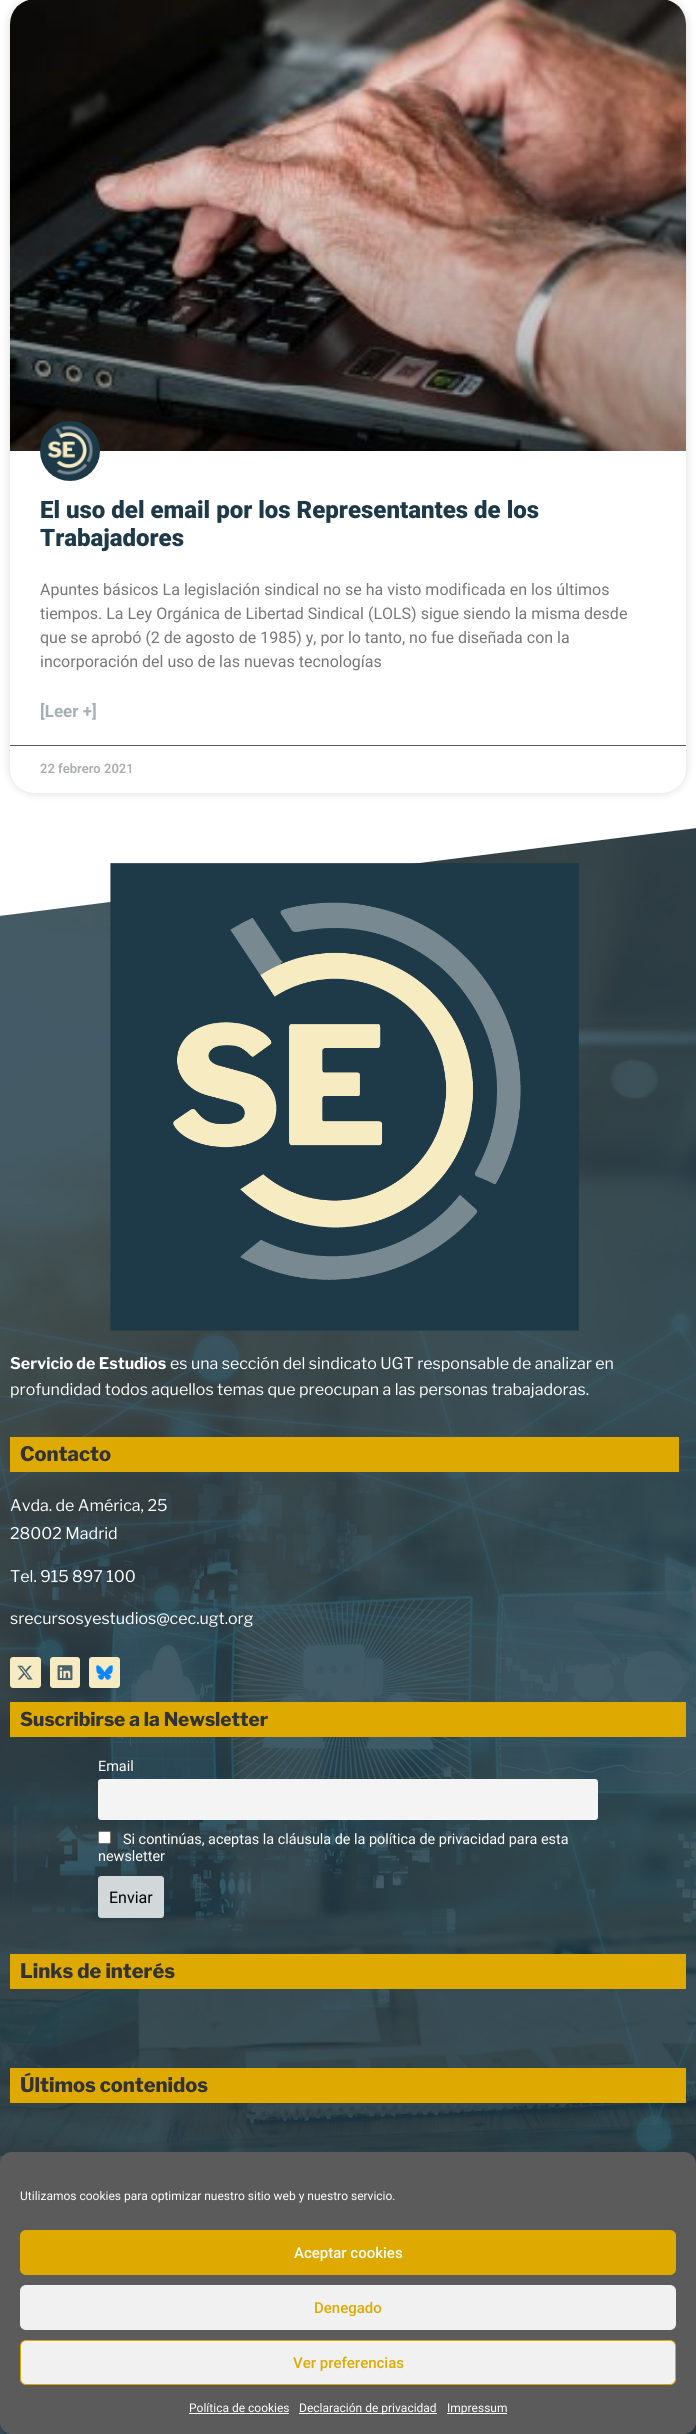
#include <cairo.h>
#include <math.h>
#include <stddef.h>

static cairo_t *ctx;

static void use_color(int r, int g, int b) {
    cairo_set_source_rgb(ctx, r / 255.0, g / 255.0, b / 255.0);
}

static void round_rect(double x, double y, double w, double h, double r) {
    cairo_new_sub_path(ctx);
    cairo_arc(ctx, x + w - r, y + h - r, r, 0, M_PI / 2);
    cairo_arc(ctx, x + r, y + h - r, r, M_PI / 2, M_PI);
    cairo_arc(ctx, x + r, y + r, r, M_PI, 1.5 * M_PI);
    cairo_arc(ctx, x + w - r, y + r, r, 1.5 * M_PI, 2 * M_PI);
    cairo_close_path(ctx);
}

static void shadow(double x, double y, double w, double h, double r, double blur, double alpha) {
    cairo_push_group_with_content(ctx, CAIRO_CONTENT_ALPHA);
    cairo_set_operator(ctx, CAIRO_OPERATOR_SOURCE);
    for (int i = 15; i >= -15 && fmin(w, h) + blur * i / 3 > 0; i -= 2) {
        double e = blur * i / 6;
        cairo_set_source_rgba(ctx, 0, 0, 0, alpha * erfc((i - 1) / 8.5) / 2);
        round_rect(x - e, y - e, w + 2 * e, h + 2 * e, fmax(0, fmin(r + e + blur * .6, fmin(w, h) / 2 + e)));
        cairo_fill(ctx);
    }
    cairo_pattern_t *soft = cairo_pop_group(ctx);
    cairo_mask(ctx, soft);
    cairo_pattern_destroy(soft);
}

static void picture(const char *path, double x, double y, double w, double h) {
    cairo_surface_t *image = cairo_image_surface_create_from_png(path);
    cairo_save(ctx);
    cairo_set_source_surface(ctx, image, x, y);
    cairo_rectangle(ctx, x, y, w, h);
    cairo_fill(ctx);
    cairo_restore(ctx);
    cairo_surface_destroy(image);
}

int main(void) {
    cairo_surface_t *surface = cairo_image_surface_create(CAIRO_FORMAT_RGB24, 696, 2434);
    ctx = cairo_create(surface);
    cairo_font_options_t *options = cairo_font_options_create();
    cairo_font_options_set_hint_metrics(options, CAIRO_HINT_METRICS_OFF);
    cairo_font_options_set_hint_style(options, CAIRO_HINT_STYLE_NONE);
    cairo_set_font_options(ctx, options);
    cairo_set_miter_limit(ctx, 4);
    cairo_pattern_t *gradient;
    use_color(255, 255, 255);
    cairo_paint(ctx);
    use_color(0, 0, 0);
    shadow(10, -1, 676, 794, 25, 5, 0.15);
    use_color(255, 255, 255);
    round_rect(10, -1, 676, 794, 25);
    cairo_fill(ctx);
    picture("img1.png", 10, 0, 676, 451);
    gradient = cairo_pattern_create_linear(348, 451, 348, -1);
    cairo_pattern_add_color_stop_rgba(gradient, 0, 0, 0, 0, 0.35);
    cairo_pattern_add_color_stop_rgba(gradient, 0.75, 0, 0, 0, 0);
    cairo_set_source(ctx, gradient);
    cairo_pattern_destroy(gradient);
    cairo_rectangle(ctx, 10, 133, 676, 318);
    cairo_fill(ctx);
    picture("img2.png", 40, 421, 60, 60);
    cairo_select_font_face(ctx, "Roboto Black", CAIRO_FONT_SLANT_NORMAL, CAIRO_FONT_WEIGHT_NORMAL);
    cairo_set_font_size(ctx, 24);
    use_color(30, 58, 72);
    cairo_move_to(ctx, 40, 518);
    cairo_show_text(ctx, "El uso del email por los Representantes de los");
    cairo_move_to(ctx, 40, 546);
    cairo_show_text(ctx, "Trabajadores");
    cairo_select_font_face(ctx, "Roboto", CAIRO_FONT_SLANT_NORMAL, CAIRO_FONT_WEIGHT_NORMAL);
    cairo_set_font_size(ctx, 16);
    use_color(119, 119, 119);
    cairo_move_to(ctx, 40, 595);
    cairo_show_text(ctx, "Apuntes básicos La legislación sindical no se ha visto modificada en los últimos");
    cairo_move_to(ctx, 40, 619);
    cairo_show_text(ctx, "tiempos. La Ley Orgánica de Libertad Sindical (LOLS) sigue siendo la misma desde");
    cairo_move_to(ctx, 40, 643);
    cairo_show_text(ctx, "que se aprobó (2 de agosto de 1985) y, por lo tanto, no fue diseñada con la");
    cairo_move_to(ctx, 40, 667);
    cairo_show_text(ctx, "incorporación del uso de las nuevas tecnologías");
    cairo_select_font_face(ctx, "Roboto", CAIRO_FONT_SLANT_NORMAL, CAIRO_FONT_WEIGHT_BOLD);
    cairo_set_font_size(ctx, 17);
    use_color(165, 176, 182);
    cairo_move_to(ctx, 40, 717);
    cairo_show_text(ctx, "[Leer +]");
    use_color(84, 89, 95);
    cairo_rectangle(ctx, 10, 745, 676, 1);
    cairo_fill(ctx);
    cairo_select_font_face(ctx, "Roboto SemiBold", CAIRO_FONT_SLANT_NORMAL, CAIRO_FONT_WEIGHT_NORMAL);
    cairo_set_font_size(ctx, 13);
    use_color(170, 172, 175);
    cairo_move_to(ctx, 40, 773);
    cairo_show_text(ctx, "22 febrero 2021");
    use_color(30, 58, 72);
    cairo_rectangle(ctx, 0, 828, 696, 1606);
    cairo_fill(ctx);
    picture("img3.png", 0, 828, 696, 1606);
    use_color(255, 255, 255);
    cairo_new_path(ctx);
    cairo_move_to(ctx, 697, 828);
    cairo_line_to(ctx, 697, 822);
    cairo_line_to(ctx, -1, 822);
    cairo_line_to(ctx, -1, 916);
    cairo_close_path(ctx);
    cairo_fill(ctx);
    picture("img4.png", 110, 863, 469, 468);
    cairo_select_font_face(ctx, "Libre Franklin", CAIRO_FONT_SLANT_NORMAL, CAIRO_FONT_WEIGHT_BOLD);
    cairo_set_font_size(ctx, 16);
    cairo_move_to(ctx, 10, 1369);
    cairo_show_text(ctx, "Servicio de Estudios");
    cairo_select_font_face(ctx, "Libre Franklin", CAIRO_FONT_SLANT_NORMAL, CAIRO_FONT_WEIGHT_NORMAL);
    cairo_move_to(ctx, 170, 1369);
    cairo_show_text(ctx, "es una sección del sindicato UGT responsable de analizar en");
    cairo_move_to(ctx, 10, 1395);
    cairo_show_text(ctx, "profundidad todos aquellos temas que preocupan a las personas trabajadoras.");
    use_color(222, 170, 2);
    cairo_rectangle(ctx, 10, 1437, 669, 35);
    cairo_fill(ctx);
    cairo_select_font_face(ctx, "Libre Franklin ExtraBold", CAIRO_FONT_SLANT_NORMAL, CAIRO_FONT_WEIGHT_NORMAL);
    cairo_set_font_size(ctx, 20);
    use_color(51, 51, 51);
    cairo_move_to(ctx, 20, 1461);
    cairo_show_text(ctx, "Contacto");
    cairo_select_font_face(ctx, "Libre Franklin", CAIRO_FONT_SLANT_NORMAL, CAIRO_FONT_WEIGHT_NORMAL);
    cairo_set_font_size(ctx, 16);
    use_color(255, 255, 255);
    cairo_move_to(ctx, 10, 1511);
    cairo_show_text(ctx, "Avda. de América, 25");
    cairo_move_to(ctx, 10, 1539);
    cairo_show_text(ctx, "28002 Madrid");
    cairo_move_to(ctx, 10, 1582);
    cairo_show_text(ctx, "Tel. 915 897 100");
    cairo_move_to(ctx, 10, 1624);
    cairo_show_text(ctx, "srecursosyestudios@cec.ugt.org");
    use_color(247, 235, 194);
    round_rect(10, 1657, 31, 31, 3);
    cairo_fill(ctx);
    picture("img5.png", 17, 1665, 16, 15);
    round_rect(50, 1657, 30, 31, 3);
    cairo_fill(ctx);
    picture("img6.png", 57, 1665, 16, 16);
    round_rect(89, 1657, 31, 31, 3);
    cairo_fill(ctx);
    picture("img7.png", 96, 1665, 17, 15);
    use_color(222, 170, 2);
    cairo_rectangle(ctx, 10, 1702, 676, 35);
    cairo_fill(ctx);
    cairo_select_font_face(ctx, "Libre Franklin ExtraBold", CAIRO_FONT_SLANT_NORMAL, CAIRO_FONT_WEIGHT_NORMAL);
    cairo_set_font_size(ctx, 19);
    use_color(51, 51, 51);
    cairo_move_to(ctx, 20, 1726);
    cairo_show_text(ctx, "Suscribirse a la Newsletter");
    cairo_select_font_face(ctx, "Roboto", CAIRO_FONT_SLANT_NORMAL, CAIRO_FONT_WEIGHT_NORMAL);
    cairo_set_font_size(ctx, 14.4);
    use_color(255, 255, 255);
    cairo_move_to(ctx, 98, 1771);
    cairo_show_text(ctx, "Email");
    use_color(244, 244, 244);
    round_rect(98, 1779, 500, 41, 3);
    cairo_fill(ctx);
    use_color(255, 255, 255);
    round_rect(98.5, 1831.5, 12, 12, 1.5);
    cairo_fill_preserve(ctx);
    use_color(118, 118, 118);
    cairo_set_line_width(ctx, 1);
    cairo_stroke(ctx);
    use_color(255, 255, 255);
    cairo_move_to(ctx, 123, 1844);
    cairo_show_text(ctx, "Si continúas, aceptas la cláusula de la política de privacidad para esta");
    cairo_move_to(ctx, 98, 1861);
    cairo_show_text(ctx, "newsletter");
    use_color(210, 216, 218);
    round_rect(98, 1876, 66, 42, 3);
    cairo_fill(ctx);
    cairo_set_font_size(ctx, 16);
    use_color(0, 0, 0);
    cairo_move_to(ctx, 109, 1903);
    cairo_show_text(ctx, "Enviar");
    use_color(222, 170, 2);
    cairo_rectangle(ctx, 10, 1954, 676, 35);
    cairo_fill(ctx);
    cairo_select_font_face(ctx, "Libre Franklin ExtraBold", CAIRO_FONT_SLANT_NORMAL, CAIRO_FONT_WEIGHT_NORMAL);
    cairo_set_font_size(ctx, 20);
    use_color(51, 51, 51);
    cairo_move_to(ctx, 20, 1978);
    cairo_show_text(ctx, "Links de interés");
    use_color(222, 170, 2);
    cairo_rectangle(ctx, 10, 2068, 676, 35);
    cairo_fill(ctx);
    use_color(51, 51, 51);
    cairo_move_to(ctx, 20, 2092);
    cairo_show_text(ctx, "Últimos contenidos");
    use_color(0, 0, 0);
    shadow(0, 2158, 696, 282, 12, 3, 0.23);
    shadow(0, 2162, 696, 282, 12, 10, 0.19);
    use_color(91, 91, 91);
    round_rect(0, 2152, 696, 282, 12);
    cairo_fill(ctx);
    cairo_select_font_face(ctx, "Roboto", CAIRO_FONT_SLANT_NORMAL, CAIRO_FONT_WEIGHT_NORMAL);
    cairo_set_font_size(ctx, 12);
    use_color(255, 255, 255);
    cairo_move_to(ctx, 20, 2200);
    cairo_show_text(ctx, "Utilizamos cookies para optimizar nuestro sitio web y nuestro servicio.");
    use_color(222, 170, 2);
    round_rect(20.5, 2230.5, 655, 44, 5.5);
    cairo_fill_preserve(ctx);
    cairo_stroke(ctx);
    cairo_select_font_face(ctx, "Roboto Medium", CAIRO_FONT_SLANT_NORMAL, CAIRO_FONT_WEIGHT_NORMAL);
    cairo_set_font_size(ctx, 15);
    use_color(255, 255, 255);
    cairo_move_to(ctx, 294, 2258);
    cairo_show_text(ctx, "Aceptar cookies");
    use_color(241, 241, 241);
    round_rect(20.5, 2285.5, 655, 44, 5.5);
    cairo_fill_preserve(ctx);
    cairo_stroke(ctx);
    use_color(222, 170, 2);
    cairo_move_to(ctx, 314, 2313);
    cairo_show_text(ctx, "Denegado");
    use_color(241, 241, 241);
    round_rect(20.5, 2340.5, 655, 44, 5.5);
    cairo_fill_preserve(ctx);
    use_color(222, 170, 2);
    cairo_stroke(ctx);
    cairo_move_to(ctx, 293, 2368);
    cairo_show_text(ctx, "Ver preferencias");
    cairo_select_font_face(ctx, "Roboto", CAIRO_FONT_SLANT_NORMAL, CAIRO_FONT_WEIGHT_NORMAL);
    cairo_set_font_size(ctx, 12);
    use_color(255, 255, 255);
    cairo_move_to(ctx, 189, 2412);
    cairo_show_text(ctx, "Política de cookies");
    cairo_rectangle(ctx, 189, 2413, 100, 1);
    cairo_fill(ctx);
    cairo_rectangle(ctx, 299, 2413, 138, 1);
    cairo_fill(ctx);
    cairo_move_to(ctx, 299, 2412);
    cairo_show_text(ctx, "Declaración de privacidad");
    cairo_rectangle(ctx, 447, 2413, 60, 1);
    cairo_fill(ctx);
    cairo_move_to(ctx, 447, 2412);
    cairo_show_text(ctx, "Impressum");
    cairo_surface_write_to_png(surface, "result.png");
    cairo_font_options_destroy(options);
    cairo_destroy(ctx);
    cairo_surface_destroy(surface);
    return 0;
}
